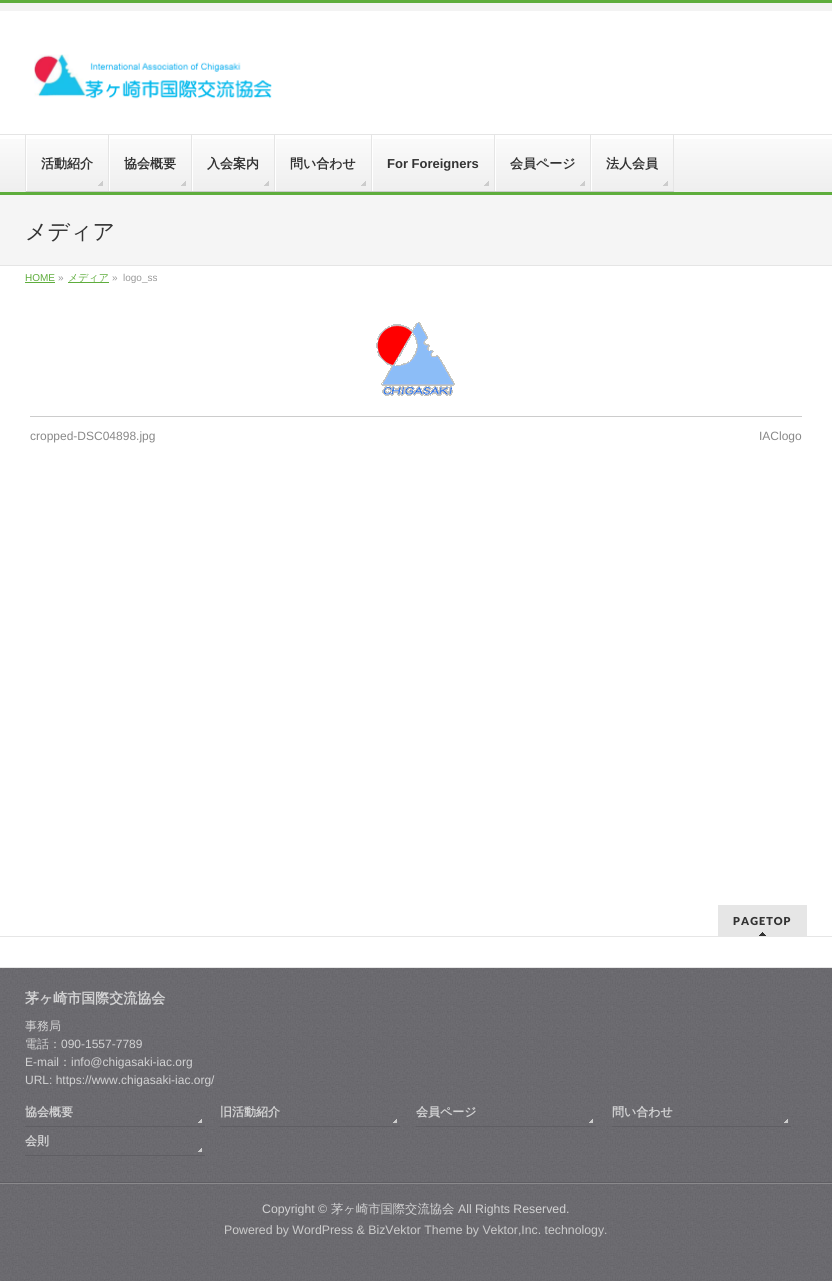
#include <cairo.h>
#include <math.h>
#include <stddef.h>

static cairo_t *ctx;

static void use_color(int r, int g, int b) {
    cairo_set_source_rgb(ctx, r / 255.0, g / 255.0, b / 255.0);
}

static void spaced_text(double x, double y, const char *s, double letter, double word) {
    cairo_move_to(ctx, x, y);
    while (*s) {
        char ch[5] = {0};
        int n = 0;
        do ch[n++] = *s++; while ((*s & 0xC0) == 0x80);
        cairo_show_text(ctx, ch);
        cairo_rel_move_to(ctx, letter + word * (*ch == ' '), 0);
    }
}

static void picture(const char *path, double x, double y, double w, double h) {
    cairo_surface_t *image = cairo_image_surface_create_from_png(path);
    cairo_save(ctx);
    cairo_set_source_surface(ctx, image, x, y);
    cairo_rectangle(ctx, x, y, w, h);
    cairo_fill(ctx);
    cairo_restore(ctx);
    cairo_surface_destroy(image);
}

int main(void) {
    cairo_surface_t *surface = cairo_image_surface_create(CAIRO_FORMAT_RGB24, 832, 1282);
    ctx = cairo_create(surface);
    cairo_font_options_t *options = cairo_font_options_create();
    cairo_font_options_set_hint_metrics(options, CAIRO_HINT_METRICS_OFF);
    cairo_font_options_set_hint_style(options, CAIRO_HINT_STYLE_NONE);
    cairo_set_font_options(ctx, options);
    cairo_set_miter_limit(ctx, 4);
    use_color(255, 255, 255);
    cairo_paint(ctx);
    use_color(243, 243, 243);
    cairo_rectangle(ctx, 0, 3, 832, 8);
    cairo_fill(ctx);
    use_color(94, 173, 60);
    cairo_rectangle(ctx, 0, 0, 832, 3);
    cairo_fill(ctx);
    picture("img1.png", 34, 54, 238, 45);
    picture("img2.png", 0, 139, 832, 53);
    use_color(229, 229, 229);
    cairo_rectangle(ctx, 0, 134, 832, 1);
    cairo_fill(ctx);
    use_color(94, 173, 60);
    cairo_rectangle(ctx, 0, 192, 832, 3);
    cairo_fill(ctx);
    use_color(229, 229, 229);
    cairo_rectangle(ctx, 25, 135, 1, 57);
    cairo_fill(ctx);
    use_color(255, 255, 255);
    cairo_rectangle(ctx, 26, 135, 1, 57);
    cairo_fill(ctx);
    picture("img3.png", 98, 181, 5, 5);
    use_color(229, 229, 229);
    cairo_rectangle(ctx, 108, 135, 1, 57);
    cairo_fill(ctx);
    use_color(204, 204, 204);
    cairo_rectangle(ctx, 26, 191, 83, 1);
    cairo_fill(ctx);
    cairo_select_font_face(ctx, "WenQuanYi Zen Hei", CAIRO_FONT_SLANT_NORMAL, CAIRO_FONT_WEIGHT_BOLD);
    cairo_set_font_size(ctx, 13);
    use_color(51, 51, 51);
    cairo_move_to(ctx, 41, 168);
    cairo_show_text(ctx, "活動紹介");
    use_color(255, 255, 255);
    cairo_rectangle(ctx, 109, 135, 1, 57);
    cairo_fill(ctx);
    picture("img3.png", 181, 181, 5, 5);
    use_color(229, 229, 229);
    cairo_rectangle(ctx, 191, 135, 1, 57);
    cairo_fill(ctx);
    use_color(204, 204, 204);
    cairo_rectangle(ctx, 109, 191, 83, 1);
    cairo_fill(ctx);
    use_color(51, 51, 51);
    cairo_move_to(ctx, 124, 168);
    cairo_show_text(ctx, "協会概要");
    use_color(255, 255, 255);
    cairo_rectangle(ctx, 192, 135, 1, 57);
    cairo_fill(ctx);
    picture("img3.png", 264, 181, 5, 5);
    use_color(229, 229, 229);
    cairo_rectangle(ctx, 274, 135, 1, 57);
    cairo_fill(ctx);
    use_color(204, 204, 204);
    cairo_rectangle(ctx, 192, 191, 83, 1);
    cairo_fill(ctx);
    use_color(51, 51, 51);
    cairo_move_to(ctx, 207, 168);
    cairo_show_text(ctx, "入会案内");
    use_color(255, 255, 255);
    cairo_rectangle(ctx, 275, 135, 1, 57);
    cairo_fill(ctx);
    picture("img3.png", 361, 181, 5, 5);
    use_color(229, 229, 229);
    cairo_rectangle(ctx, 371, 135, 1, 57);
    cairo_fill(ctx);
    use_color(204, 204, 204);
    cairo_rectangle(ctx, 275, 191, 97, 1);
    cairo_fill(ctx);
    use_color(51, 51, 51);
    cairo_move_to(ctx, 290, 168);
    cairo_show_text(ctx, "問い合わせ");
    use_color(255, 255, 255);
    cairo_rectangle(ctx, 372, 135, 1, 57);
    cairo_fill(ctx);
    picture("img3.png", 484, 181, 5, 5);
    use_color(229, 229, 229);
    cairo_rectangle(ctx, 494, 135, 1, 57);
    cairo_fill(ctx);
    use_color(204, 204, 204);
    cairo_rectangle(ctx, 372, 191, 123, 1);
    cairo_fill(ctx);
    cairo_select_font_face(ctx, "Liberation Sans", CAIRO_FONT_SLANT_NORMAL, CAIRO_FONT_WEIGHT_BOLD);
    use_color(51, 51, 51);
    cairo_move_to(ctx, 387, 168);
    cairo_show_text(ctx, "For Foreigners");
    use_color(255, 255, 255);
    cairo_rectangle(ctx, 495, 135, 1, 57);
    cairo_fill(ctx);
    picture("img3.png", 580, 181, 5, 5);
    use_color(229, 229, 229);
    cairo_rectangle(ctx, 590, 135, 1, 57);
    cairo_fill(ctx);
    use_color(204, 204, 204);
    cairo_rectangle(ctx, 495, 191, 96, 1);
    cairo_fill(ctx);
    cairo_select_font_face(ctx, "WenQuanYi Zen Hei", CAIRO_FONT_SLANT_NORMAL, CAIRO_FONT_WEIGHT_BOLD);
    use_color(51, 51, 51);
    cairo_move_to(ctx, 510, 168);
    cairo_show_text(ctx, "会員ページ");
    use_color(255, 255, 255);
    cairo_rectangle(ctx, 591, 135, 1, 57);
    cairo_fill(ctx);
    picture("img3.png", 663, 181, 5, 5);
    use_color(229, 229, 229);
    cairo_rectangle(ctx, 673, 135, 1, 57);
    cairo_fill(ctx);
    use_color(204, 204, 204);
    cairo_rectangle(ctx, 591, 191, 83, 1);
    cairo_fill(ctx);
    use_color(51, 51, 51);
    cairo_move_to(ctx, 606, 168);
    cairo_show_text(ctx, "法人会員");
    use_color(245, 245, 245);
    cairo_rectangle(ctx, 0, 195, 832, 70);
    cairo_fill(ctx);
    use_color(229, 229, 229);
    cairo_rectangle(ctx, 0, 265, 832, 1);
    cairo_fill(ctx);
    cairo_select_font_face(ctx, "WenQuanYi Zen Hei Medium", CAIRO_FONT_SLANT_NORMAL, CAIRO_FONT_WEIGHT_NORMAL);
    cairo_set_font_size(ctx, 22);
    use_color(51, 51, 51);
    cairo_move_to(ctx, 25, 239);
    cairo_show_text(ctx, "メディア");
    cairo_select_font_face(ctx, "Liberation Sans", CAIRO_FONT_SLANT_NORMAL, CAIRO_FONT_WEIGHT_NORMAL);
    cairo_set_font_size(ctx, 10);
    use_color(94, 173, 60);
    cairo_move_to(ctx, 25, 281);
    cairo_show_text(ctx, "HOME");
    cairo_rectangle(ctx, 25, 282, 30, 1);
    cairo_fill(ctx);
    use_color(153, 153, 153);
    cairo_move_to(ctx, 58, 281);
    cairo_show_text(ctx, "»");
    use_color(94, 173, 60);
    cairo_rectangle(ctx, 68, 282, 41, 1);
    cairo_fill(ctx);
    cairo_select_font_face(ctx, "WenQuanYi Zen Hei Medium", CAIRO_FONT_SLANT_NORMAL, CAIRO_FONT_WEIGHT_NORMAL);
    cairo_move_to(ctx, 68, 281);
    cairo_show_text(ctx, "メディア");
    cairo_select_font_face(ctx, "Liberation Sans", CAIRO_FONT_SLANT_NORMAL, CAIRO_FONT_WEIGHT_NORMAL);
    use_color(153, 153, 153);
    cairo_move_to(ctx, 112, 281);
    cairo_show_text(ctx, "»");
    cairo_move_to(ctx, 123, 281);
    cairo_show_text(ctx, "logo_ss");
    picture("img4.png", 376, 322, 79, 74);
    use_color(204, 204, 204);
    cairo_rectangle(ctx, 30, 416, 772, 1);
    cairo_fill(ctx);
    cairo_set_font_size(ctx, 12);
    use_color(136, 136, 136);
    cairo_move_to(ctx, 30, 440);
    cairo_show_text(ctx, "cropped-DSC04898.jpg");
    cairo_move_to(ctx, 759, 440);
    cairo_show_text(ctx, "IAClogo");
    use_color(230, 230, 230);
    cairo_rectangle(ctx, 718, 905, 89, 31);
    cairo_fill(ctx);
    picture("img5.png", 759, 932, 7, 4);
    cairo_select_font_face(ctx, "Lato Black", CAIRO_FONT_SLANT_NORMAL, CAIRO_FONT_WEIGHT_NORMAL);
    cairo_set_font_size(ctx, 11);
    use_color(51, 51, 51);
    spaced_text(733, 925, "PAGETOP", 1, 0);
    use_color(230, 230, 230);
    cairo_rectangle(ctx, 0, 936, 832, 1);
    cairo_fill(ctx);
    cairo_rectangle(ctx, 0, 967, 832, 1);
    cairo_fill(ctx);
    picture("img6.png", 0, 968, 832, 214);
    use_color(95, 94, 99);
    cairo_rectangle(ctx, 0, 1182, 832, 1);
    cairo_fill(ctx);
    cairo_select_font_face(ctx, "WenQuanYi Zen Hei", CAIRO_FONT_SLANT_NORMAL, CAIRO_FONT_WEIGHT_BOLD);
    cairo_set_font_size(ctx, 14);
    use_color(210, 210, 211);
    cairo_move_to(ctx, 25, 1003);
    cairo_show_text(ctx, "茅ヶ崎市国際交流協会");
    cairo_select_font_face(ctx, "WenQuanYi Zen Hei Medium", CAIRO_FONT_SLANT_NORMAL, CAIRO_FONT_WEIGHT_NORMAL);
    cairo_set_font_size(ctx, 12);
    cairo_move_to(ctx, 25, 1030);
    cairo_show_text(ctx, "事務局");
    cairo_move_to(ctx, 25, 1048);
    cairo_show_text(ctx, "電話：");
    cairo_select_font_face(ctx, "Liberation Sans", CAIRO_FONT_SLANT_NORMAL, CAIRO_FONT_WEIGHT_NORMAL);
    cairo_move_to(ctx, 61, 1048);
    cairo_show_text(ctx, "090-1557-7789");
    cairo_move_to(ctx, 25, 1066);
    cairo_show_text(ctx, "E-mail");
    cairo_select_font_face(ctx, "WenQuanYi Zen Hei Medium", CAIRO_FONT_SLANT_NORMAL, CAIRO_FONT_WEIGHT_NORMAL);
    cairo_move_to(ctx, 59, 1066);
    cairo_show_text(ctx, "：");
    cairo_select_font_face(ctx, "Liberation Sans", CAIRO_FONT_SLANT_NORMAL, CAIRO_FONT_WEIGHT_NORMAL);
    cairo_move_to(ctx, 71, 1066);
    cairo_show_text(ctx, "info@chigasaki-iac.org");
    cairo_move_to(ctx, 25, 1084);
    cairo_show_text(ctx, "URL: https://www.chigasaki-iac.org/");
    picture("img7.png", 198, 1119, 4, 4);
    use_color(95, 94, 99);
    cairo_rectangle(ctx, 25, 1126, 180, 1);
    cairo_fill(ctx);
    cairo_select_font_face(ctx, "WenQuanYi Zen Hei", CAIRO_FONT_SLANT_NORMAL, CAIRO_FONT_WEIGHT_BOLD);
    use_color(210, 210, 211);
    cairo_move_to(ctx, 25, 1116);
    cairo_show_text(ctx, "協会概要");
    picture("img8.png", 393, 1119, 4, 4);
    use_color(95, 94, 99);
    cairo_rectangle(ctx, 220, 1126, 180, 1);
    cairo_fill(ctx);
    use_color(210, 210, 211);
    cairo_move_to(ctx, 220, 1116);
    cairo_show_text(ctx, "旧活動紹介");
    picture("img9.png", 589, 1119, 4, 4);
    use_color(95, 94, 99);
    cairo_rectangle(ctx, 416, 1126, 180, 1);
    cairo_fill(ctx);
    use_color(210, 210, 211);
    cairo_move_to(ctx, 416, 1116);
    cairo_show_text(ctx, "会員ページ");
    picture("img10.png", 784, 1119, 4, 4);
    use_color(95, 94, 99);
    cairo_rectangle(ctx, 612, 1126, 179, 1);
    cairo_fill(ctx);
    use_color(210, 210, 211);
    cairo_move_to(ctx, 612, 1116);
    cairo_show_text(ctx, "問い合わせ");
    picture("img11.png", 198, 1148, 4, 4);
    use_color(95, 94, 99);
    cairo_rectangle(ctx, 25, 1155, 180, 1);
    cairo_fill(ctx);
    use_color(210, 210, 211);
    cairo_move_to(ctx, 25, 1145);
    cairo_show_text(ctx, "会則");
    picture("img12.png", 0, 1184, 832, 97);
    use_color(138, 137, 140);
    cairo_rectangle(ctx, 0, 1183, 832, 1);
    cairo_fill(ctx);
    cairo_select_font_face(ctx, "Liberation Sans", CAIRO_FONT_SLANT_NORMAL, CAIRO_FONT_WEIGHT_NORMAL);
    cairo_set_font_size(ctx, 12.3);
    use_color(210, 210, 211);
    cairo_move_to(ctx, 262, 1213);
    cairo_show_text(ctx, "Copyright ©");
    cairo_select_font_face(ctx, "WenQuanYi Zen Hei Medium", CAIRO_FONT_SLANT_NORMAL, CAIRO_FONT_WEIGHT_NORMAL);
    cairo_move_to(ctx, 331, 1213);
    cairo_show_text(ctx, "茅ヶ崎市国際交流協会");
    cairo_select_font_face(ctx, "Liberation Sans", CAIRO_FONT_SLANT_NORMAL, CAIRO_FONT_WEIGHT_NORMAL);
    cairo_move_to(ctx, 458, 1213);
    cairo_show_text(ctx, "All Rights Reserved.");
    use_color(204, 204, 204);
    cairo_move_to(ctx, 224, 1234);
    cairo_show_text(ctx, "Powered by WordPress & BizVektor Theme by Vektor,Inc. technology.");
    cairo_surface_write_to_png(surface, "result.png");
    cairo_font_options_destroy(options);
    cairo_destroy(ctx);
    cairo_surface_destroy(surface);
    return 0;
}
